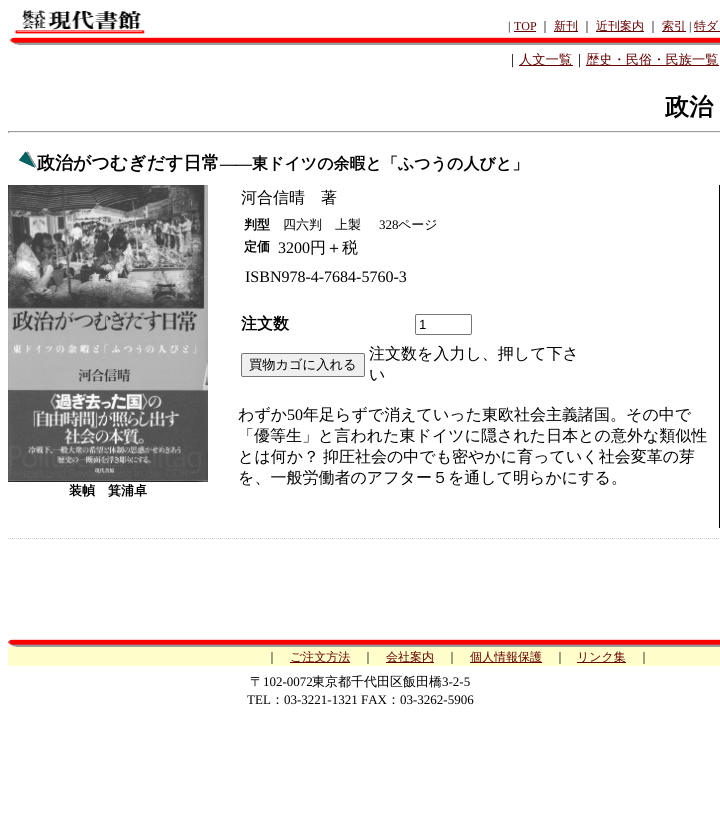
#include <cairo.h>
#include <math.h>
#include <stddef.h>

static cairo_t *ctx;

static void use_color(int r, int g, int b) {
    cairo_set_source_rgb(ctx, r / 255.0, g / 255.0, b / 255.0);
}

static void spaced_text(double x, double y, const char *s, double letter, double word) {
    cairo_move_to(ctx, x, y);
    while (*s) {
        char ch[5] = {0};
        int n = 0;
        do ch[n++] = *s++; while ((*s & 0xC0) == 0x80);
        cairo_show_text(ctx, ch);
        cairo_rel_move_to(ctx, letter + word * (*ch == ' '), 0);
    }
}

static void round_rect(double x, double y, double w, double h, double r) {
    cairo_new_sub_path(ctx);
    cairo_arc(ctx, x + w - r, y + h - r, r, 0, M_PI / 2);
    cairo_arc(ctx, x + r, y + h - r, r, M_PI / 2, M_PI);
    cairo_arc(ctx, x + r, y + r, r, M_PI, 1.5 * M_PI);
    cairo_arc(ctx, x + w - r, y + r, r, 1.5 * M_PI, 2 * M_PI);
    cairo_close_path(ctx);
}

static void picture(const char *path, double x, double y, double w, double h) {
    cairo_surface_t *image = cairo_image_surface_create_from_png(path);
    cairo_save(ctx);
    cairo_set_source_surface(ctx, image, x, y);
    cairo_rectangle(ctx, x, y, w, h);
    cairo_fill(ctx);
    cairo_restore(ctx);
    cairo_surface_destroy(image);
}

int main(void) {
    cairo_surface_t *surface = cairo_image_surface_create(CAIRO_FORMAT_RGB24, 720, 819);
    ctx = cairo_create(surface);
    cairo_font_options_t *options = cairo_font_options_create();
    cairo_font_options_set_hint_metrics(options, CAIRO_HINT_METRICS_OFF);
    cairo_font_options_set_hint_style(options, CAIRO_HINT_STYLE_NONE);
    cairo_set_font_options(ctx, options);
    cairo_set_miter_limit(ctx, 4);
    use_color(255, 255, 255);
    cairo_paint(ctx);
    picture("img1.png", 14, 10, 131, 24);
    cairo_select_font_face(ctx, "Liberation Serif", CAIRO_FONT_SLANT_NORMAL, CAIRO_FONT_WEIGHT_NORMAL);
    cairo_set_font_size(ctx, 12);
    use_color(0, 0, 0);
    cairo_move_to(ctx, 508, 30);
    cairo_show_text(ctx, "|");
    use_color(102, 0, 0);
    cairo_move_to(ctx, 514, 30);
    cairo_show_text(ctx, "TOP");
    cairo_rectangle(ctx, 514, 31, 22, 1);
    cairo_fill(ctx);
    cairo_select_font_face(ctx, "WenQuanYi Zen Hei Medium", CAIRO_FONT_SLANT_NORMAL, CAIRO_FONT_WEIGHT_NORMAL);
    use_color(0, 0, 0);
    cairo_move_to(ctx, 539, 30);
    cairo_show_text(ctx, "｜");
    use_color(102, 0, 0);
    cairo_rectangle(ctx, 554, 31, 24, 1);
    cairo_fill(ctx);
    cairo_move_to(ctx, 554, 30);
    cairo_show_text(ctx, "新刊");
    use_color(0, 0, 0);
    cairo_move_to(ctx, 581, 30);
    cairo_show_text(ctx, "｜");
    use_color(102, 0, 0);
    cairo_rectangle(ctx, 596, 31, 48, 1);
    cairo_fill(ctx);
    cairo_move_to(ctx, 596, 30);
    cairo_show_text(ctx, "近刊案内");
    use_color(0, 0, 0);
    cairo_move_to(ctx, 647, 30);
    cairo_show_text(ctx, "｜");
    use_color(102, 0, 0);
    cairo_rectangle(ctx, 662, 31, 24, 1);
    cairo_fill(ctx);
    cairo_move_to(ctx, 662, 30);
    cairo_show_text(ctx, "索引");
    cairo_select_font_face(ctx, "Liberation Serif", CAIRO_FONT_SLANT_NORMAL, CAIRO_FONT_WEIGHT_NORMAL);
    use_color(0, 0, 0);
    cairo_move_to(ctx, 689, 30);
    cairo_show_text(ctx, "|");
    use_color(102, 0, 0);
    cairo_rectangle(ctx, 694, 31, 26, 1);
    cairo_fill(ctx);
    cairo_select_font_face(ctx, "WenQuanYi Zen Hei Medium", CAIRO_FONT_SLANT_NORMAL, CAIRO_FONT_WEIGHT_NORMAL);
    cairo_move_to(ctx, 694, 30);
    cairo_show_text(ctx, "特ダ");
    picture("img2.png", 10, 37, 710, 8);
    cairo_set_font_size(ctx, 13.25);
    use_color(0, 0, 0);
    cairo_move_to(ctx, 506, 64);
    cairo_show_text(ctx, "｜");
    use_color(102, 0, 0);
    cairo_rectangle(ctx, 519, 65, 54, 1);
    cairo_fill(ctx);
    cairo_move_to(ctx, 519, 64);
    cairo_show_text(ctx, "人文一覧");
    use_color(0, 0, 0);
    cairo_move_to(ctx, 573, 64);
    cairo_show_text(ctx, "｜");
    use_color(102, 0, 0);
    cairo_rectangle(ctx, 586, 65, 133, 1);
    cairo_fill(ctx);
    cairo_move_to(ctx, 586, 64);
    cairo_show_text(ctx, "歴史・民俗・民族一覧");
    cairo_select_font_face(ctx, "WenQuanYi Zen Hei", CAIRO_FONT_SLANT_NORMAL, CAIRO_FONT_WEIGHT_BOLD);
    cairo_set_font_size(ctx, 24);
    use_color(0, 0, 0);
    cairo_move_to(ctx, 665, 115);
    cairo_show_text(ctx, "政治");
    use_color(159, 159, 159);
    cairo_rectangle(ctx, 8, 131, 712, 1);
    cairo_fill(ctx);
    use_color(238, 238, 238);
    cairo_rectangle(ctx, 8, 132, 712, 1);
    cairo_fill(ctx);
    use_color(159, 159, 159);
    cairo_rectangle(ctx, 8, 131, 1, 2);
    cairo_fill(ctx);
    picture("img3.png", 19, 151, 18, 17);
    cairo_set_font_size(ctx, 18);
    use_color(0, 0, 0);
    cairo_move_to(ctx, 37, 169);
    cairo_show_text(ctx, "政治がつむぎだす日常");
    cairo_select_font_face(ctx, "Liberation Serif", CAIRO_FONT_SLANT_NORMAL, CAIRO_FONT_WEIGHT_BOLD);
    cairo_set_font_size(ctx, 16);
    cairo_move_to(ctx, 220, 169);
    cairo_show_text(ctx, "――");
    cairo_select_font_face(ctx, "WenQuanYi Zen Hei", CAIRO_FONT_SLANT_NORMAL, CAIRO_FONT_WEIGHT_BOLD);
    cairo_move_to(ctx, 252, 169);
    cairo_show_text(ctx, "東ドイツの余暇と「ふつうの人びと」");
    cairo_rectangle(ctx, 719, 185, 1, 343);
    cairo_fill(ctx);
    cairo_select_font_face(ctx, "WenQuanYi Zen Hei Medium", CAIRO_FONT_SLANT_NORMAL, CAIRO_FONT_WEIGHT_NORMAL);
    cairo_move_to(ctx, 241, 203);
    cairo_show_text(ctx, "河合信晴　著");
    cairo_select_font_face(ctx, "WenQuanYi Zen Hei", CAIRO_FONT_SLANT_NORMAL, CAIRO_FONT_WEIGHT_BOLD);
    cairo_set_font_size(ctx, 13);
    cairo_move_to(ctx, 244, 229);
    cairo_show_text(ctx, "判型");
    cairo_select_font_face(ctx, "WenQuanYi Zen Hei Medium", CAIRO_FONT_SLANT_NORMAL, CAIRO_FONT_WEIGHT_NORMAL);
    cairo_move_to(ctx, 283, 229);
    cairo_show_text(ctx, "四六判　上製");
    cairo_select_font_face(ctx, "Liberation Serif", CAIRO_FONT_SLANT_NORMAL, CAIRO_FONT_WEIGHT_NORMAL);
    cairo_move_to(ctx, 379, 229);
    cairo_show_text(ctx, "328");
    cairo_select_font_face(ctx, "WenQuanYi Zen Hei Medium", CAIRO_FONT_SLANT_NORMAL, CAIRO_FONT_WEIGHT_NORMAL);
    cairo_move_to(ctx, 398, 229);
    cairo_show_text(ctx, "ページ");
    cairo_select_font_face(ctx, "WenQuanYi Zen Hei", CAIRO_FONT_SLANT_NORMAL, CAIRO_FONT_WEIGHT_BOLD);
    cairo_move_to(ctx, 244, 251);
    cairo_show_text(ctx, "定価");
    cairo_select_font_face(ctx, "Liberation Serif", CAIRO_FONT_SLANT_NORMAL, CAIRO_FONT_WEIGHT_NORMAL);
    cairo_set_font_size(ctx, 16);
    cairo_move_to(ctx, 278, 253);
    cairo_show_text(ctx, "3200");
    cairo_select_font_face(ctx, "WenQuanYi Zen Hei Medium", CAIRO_FONT_SLANT_NORMAL, CAIRO_FONT_WEIGHT_NORMAL);
    cairo_move_to(ctx, 310, 253);
    cairo_show_text(ctx, "円＋税");
    cairo_select_font_face(ctx, "Liberation Serif", CAIRO_FONT_SLANT_NORMAL, CAIRO_FONT_WEIGHT_NORMAL);
    cairo_move_to(ctx, 245, 282);
    cairo_show_text(ctx, "ISBN978-4-7684-5760-3");
    cairo_select_font_face(ctx, "WenQuanYi Zen Hei", CAIRO_FONT_SLANT_NORMAL, CAIRO_FONT_WEIGHT_BOLD);
    cairo_move_to(ctx, 241, 329);
    cairo_show_text(ctx, "注文数");
    round_rect(415.5, 314.5, 56, 20, 1.5);
    use_color(118, 118, 118);
    cairo_set_line_width(ctx, 1);
    cairo_stroke(ctx);
    cairo_select_font_face(ctx, "Liberation Sans", CAIRO_FONT_SLANT_NORMAL, CAIRO_FONT_WEIGHT_NORMAL);
    cairo_set_font_size(ctx, 13.25);
    use_color(0, 0, 0);
    cairo_move_to(ctx, 419, 329);
    cairo_show_text(ctx, "1");
    use_color(239, 239, 239);
    round_rect(241.5, 353.5, 123, 23, 1.5);
    cairo_fill_preserve(ctx);
    use_color(118, 118, 118);
    cairo_stroke(ctx);
    cairo_select_font_face(ctx, "WenQuanYi Zen Hei Medium", CAIRO_FONT_SLANT_NORMAL, CAIRO_FONT_WEIGHT_NORMAL);
    use_color(0, 0, 0);
    cairo_move_to(ctx, 249, 369);
    cairo_show_text(ctx, "買物カゴに入れる");
    cairo_set_font_size(ctx, 16);
    cairo_move_to(ctx, 369, 359);
    cairo_show_text(ctx, "注文数を入力し、押して下さ");
    cairo_move_to(ctx, 369, 380);
    cairo_show_text(ctx, "い");
    cairo_move_to(ctx, 238, 420);
    cairo_show_text(ctx, "わずか");
    cairo_select_font_face(ctx, "Liberation Serif", CAIRO_FONT_SLANT_NORMAL, CAIRO_FONT_WEIGHT_NORMAL);
    cairo_move_to(ctx, 287, 420);
    cairo_show_text(ctx, "50");
    cairo_select_font_face(ctx, "WenQuanYi Zen Hei Medium", CAIRO_FONT_SLANT_NORMAL, CAIRO_FONT_WEIGHT_NORMAL);
    cairo_move_to(ctx, 303, 420);
    cairo_show_text(ctx, "年足らずで消えていった東欧社会主義諸国。その中で");
    cairo_move_to(ctx, 238, 441);
    cairo_show_text(ctx, "「優等生」と言われた東ドイツに隠された日本との意外な類似性");
    spaced_text(238, 462, "とは何か？ 抑圧社会の中でも密やかに育っていく社会変革の芽", 0, -1);
    cairo_move_to(ctx, 238, 483);
    cairo_show_text(ctx, "を、一般労働者のアフター５を通して明らかにする。");
    picture("img4.png", 8, 185, 200, 297);
    cairo_select_font_face(ctx, "WenQuanYi Zen Hei", CAIRO_FONT_SLANT_NORMAL, CAIRO_FONT_WEIGHT_BOLD);
    cairo_set_font_size(ctx, 13);
    cairo_move_to(ctx, 69, 495);
    cairo_show_text(ctx, "装幀　箕浦卓");
    cairo_new_path(ctx);
    cairo_move_to(ctx, 8, 538.5);
    cairo_line_to(ctx, 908, 538.5);
    use_color(204, 204, 204);
    cairo_set_dash(ctx, (double[]){1, 1}, 2, 0);
    cairo_stroke(ctx);
    picture("img5.png", 8, 639, 712, 8);
    use_color(255, 255, 204);
    cairo_rectangle(ctx, 8, 647, 712, 19);
    cairo_fill(ctx);
    cairo_select_font_face(ctx, "WenQuanYi Zen Hei Medium", CAIRO_FONT_SLANT_NORMAL, CAIRO_FONT_WEIGHT_NORMAL);
    cairo_set_font_size(ctx, 12);
    use_color(0, 0, 0);
    cairo_move_to(ctx, 266, 661);
    cairo_show_text(ctx, "｜");
    use_color(102, 0, 0);
    cairo_rectangle(ctx, 290, 662, 60, 1);
    cairo_fill(ctx);
    cairo_move_to(ctx, 290, 661);
    cairo_show_text(ctx, "ご注文方法");
    use_color(0, 0, 0);
    cairo_move_to(ctx, 362, 661);
    cairo_show_text(ctx, "｜");
    use_color(102, 0, 0);
    cairo_rectangle(ctx, 386, 662, 48, 1);
    cairo_fill(ctx);
    cairo_move_to(ctx, 386, 661);
    cairo_show_text(ctx, "会社案内");
    use_color(0, 0, 0);
    cairo_move_to(ctx, 446, 661);
    cairo_show_text(ctx, "｜");
    use_color(102, 0, 0);
    cairo_rectangle(ctx, 470, 662, 72, 1);
    cairo_fill(ctx);
    cairo_move_to(ctx, 470, 661);
    cairo_show_text(ctx, "個人情報保護");
    use_color(0, 0, 0);
    cairo_move_to(ctx, 554, 661);
    cairo_show_text(ctx, "｜");
    use_color(102, 0, 0);
    cairo_rectangle(ctx, 577, 662, 49, 1);
    cairo_fill(ctx);
    cairo_move_to(ctx, 577, 661);
    cairo_show_text(ctx, "リンク集");
    use_color(0, 0, 0);
    cairo_move_to(ctx, 638, 661);
    cairo_show_text(ctx, "｜");
    cairo_set_font_size(ctx, 13);
    cairo_move_to(ctx, 250, 686);
    cairo_show_text(ctx, "〒");
    cairo_select_font_face(ctx, "Liberation Serif", CAIRO_FONT_SLANT_NORMAL, CAIRO_FONT_WEIGHT_NORMAL);
    cairo_move_to(ctx, 263, 686);
    cairo_show_text(ctx, "102-0072");
    cairo_select_font_face(ctx, "WenQuanYi Zen Hei Medium", CAIRO_FONT_SLANT_NORMAL, CAIRO_FONT_WEIGHT_NORMAL);
    cairo_move_to(ctx, 312, 686);
    cairo_show_text(ctx, "東京都千代田区飯田橋");
    cairo_select_font_face(ctx, "Liberation Serif", CAIRO_FONT_SLANT_NORMAL, CAIRO_FONT_WEIGHT_NORMAL);
    cairo_move_to(ctx, 442, 686);
    cairo_show_text(ctx, "3-2-5");
    cairo_move_to(ctx, 247, 704);
    cairo_show_text(ctx, "TEL");
    cairo_select_font_face(ctx, "WenQuanYi Zen Hei Medium", CAIRO_FONT_SLANT_NORMAL, CAIRO_FONT_WEIGHT_NORMAL);
    cairo_move_to(ctx, 271, 704);
    cairo_show_text(ctx, "：");
    cairo_select_font_face(ctx, "Liberation Serif", CAIRO_FONT_SLANT_NORMAL, CAIRO_FONT_WEIGHT_NORMAL);
    cairo_move_to(ctx, 284, 704);
    cairo_show_text(ctx, "03-3221-1321 FAX");
    cairo_select_font_face(ctx, "WenQuanYi Zen Hei Medium", CAIRO_FONT_SLANT_NORMAL, CAIRO_FONT_WEIGHT_NORMAL);
    cairo_move_to(ctx, 387, 704);
    cairo_show_text(ctx, "：");
    cairo_select_font_face(ctx, "Liberation Serif", CAIRO_FONT_SLANT_NORMAL, CAIRO_FONT_WEIGHT_NORMAL);
    cairo_move_to(ctx, 400, 704);
    cairo_show_text(ctx, "03-3262-5906");
    cairo_surface_write_to_png(surface, "result.png");
    cairo_font_options_destroy(options);
    cairo_destroy(ctx);
    cairo_surface_destroy(surface);
    return 0;
}
